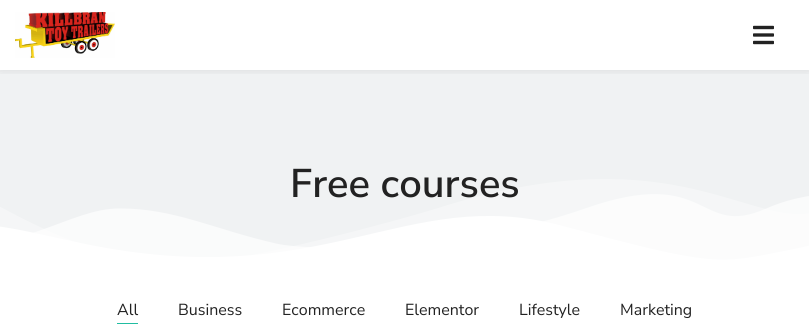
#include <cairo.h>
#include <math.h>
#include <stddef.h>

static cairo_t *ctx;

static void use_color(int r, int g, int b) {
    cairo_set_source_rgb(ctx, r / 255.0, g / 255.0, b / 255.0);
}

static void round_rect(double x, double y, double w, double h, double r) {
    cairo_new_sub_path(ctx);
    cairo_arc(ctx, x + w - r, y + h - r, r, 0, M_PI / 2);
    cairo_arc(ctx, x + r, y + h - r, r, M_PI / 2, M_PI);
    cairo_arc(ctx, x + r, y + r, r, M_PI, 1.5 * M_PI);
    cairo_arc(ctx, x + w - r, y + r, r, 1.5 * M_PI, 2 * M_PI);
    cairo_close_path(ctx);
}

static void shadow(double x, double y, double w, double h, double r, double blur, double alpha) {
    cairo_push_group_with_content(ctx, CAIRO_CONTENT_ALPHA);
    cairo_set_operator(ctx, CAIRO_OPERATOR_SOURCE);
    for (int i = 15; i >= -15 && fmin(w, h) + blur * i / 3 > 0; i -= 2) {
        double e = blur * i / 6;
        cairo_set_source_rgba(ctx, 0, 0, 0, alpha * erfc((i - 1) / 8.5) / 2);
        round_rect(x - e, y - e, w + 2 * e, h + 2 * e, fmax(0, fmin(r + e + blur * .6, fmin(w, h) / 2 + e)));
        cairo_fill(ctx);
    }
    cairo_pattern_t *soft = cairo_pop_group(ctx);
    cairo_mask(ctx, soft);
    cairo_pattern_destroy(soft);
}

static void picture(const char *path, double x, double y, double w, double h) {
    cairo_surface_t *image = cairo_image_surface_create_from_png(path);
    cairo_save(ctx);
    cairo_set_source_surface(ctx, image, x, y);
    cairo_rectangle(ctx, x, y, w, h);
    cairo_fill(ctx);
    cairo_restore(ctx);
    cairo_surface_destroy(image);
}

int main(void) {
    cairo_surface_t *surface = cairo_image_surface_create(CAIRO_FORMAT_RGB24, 809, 333);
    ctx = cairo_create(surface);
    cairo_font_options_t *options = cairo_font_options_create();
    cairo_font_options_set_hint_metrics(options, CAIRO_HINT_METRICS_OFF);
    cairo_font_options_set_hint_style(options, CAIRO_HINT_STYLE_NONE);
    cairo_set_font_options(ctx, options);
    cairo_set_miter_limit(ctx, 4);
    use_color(255, 255, 255);
    cairo_paint(ctx);
    use_color(240, 242, 243);
    cairo_rectangle(ctx, 0, 70, 809, 190);
    cairo_fill(ctx);
    cairo_save(ctx);
    cairo_rectangle(ctx, 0, 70, 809, 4);
    cairo_clip(ctx);
    use_color(0, 0, 0);
    shadow(0, 0, 809, 70, 0, 5, 0.1);
    cairo_restore(ctx);
    picture("img1.png", 15, 12, 100, 46);
    picture("img2.png", 753, 25, 21, 20);
    picture("img3.png", 0, 179, 809, 89);
    cairo_select_font_face(ctx, "Nunito Sans SemiBold", CAIRO_FONT_SLANT_NORMAL, CAIRO_FONT_WEIGHT_NORMAL);
    cairo_set_font_size(ctx, 40);
    use_color(34, 34, 34);
    cairo_move_to(ctx, 290, 197);
    cairo_show_text(ctx, "Free courses");
    cairo_select_font_face(ctx, "Nunito Sans", CAIRO_FONT_SLANT_NORMAL, CAIRO_FONT_WEIGHT_NORMAL);
    cairo_set_font_size(ctx, 16);
    cairo_move_to(ctx, 117, 315);
    cairo_show_text(ctx, "All");
    use_color(33, 189, 161);
    cairo_rectangle(ctx, 117, 323, 21, 1);
    cairo_fill(ctx);
    use_color(34, 34, 34);
    cairo_move_to(ctx, 178, 315);
    cairo_show_text(ctx, "Business");
    cairo_move_to(ctx, 282, 315);
    cairo_show_text(ctx, "Ecommerce");
    cairo_move_to(ctx, 405, 315);
    cairo_show_text(ctx, "Elementor");
    cairo_move_to(ctx, 519, 315);
    cairo_show_text(ctx, "Lifestyle");
    cairo_move_to(ctx, 620, 315);
    cairo_show_text(ctx, "Marketing");
    cairo_surface_write_to_png(surface, "result.png");
    cairo_font_options_destroy(options);
    cairo_destroy(ctx);
    cairo_surface_destroy(surface);
    return 0;
}
